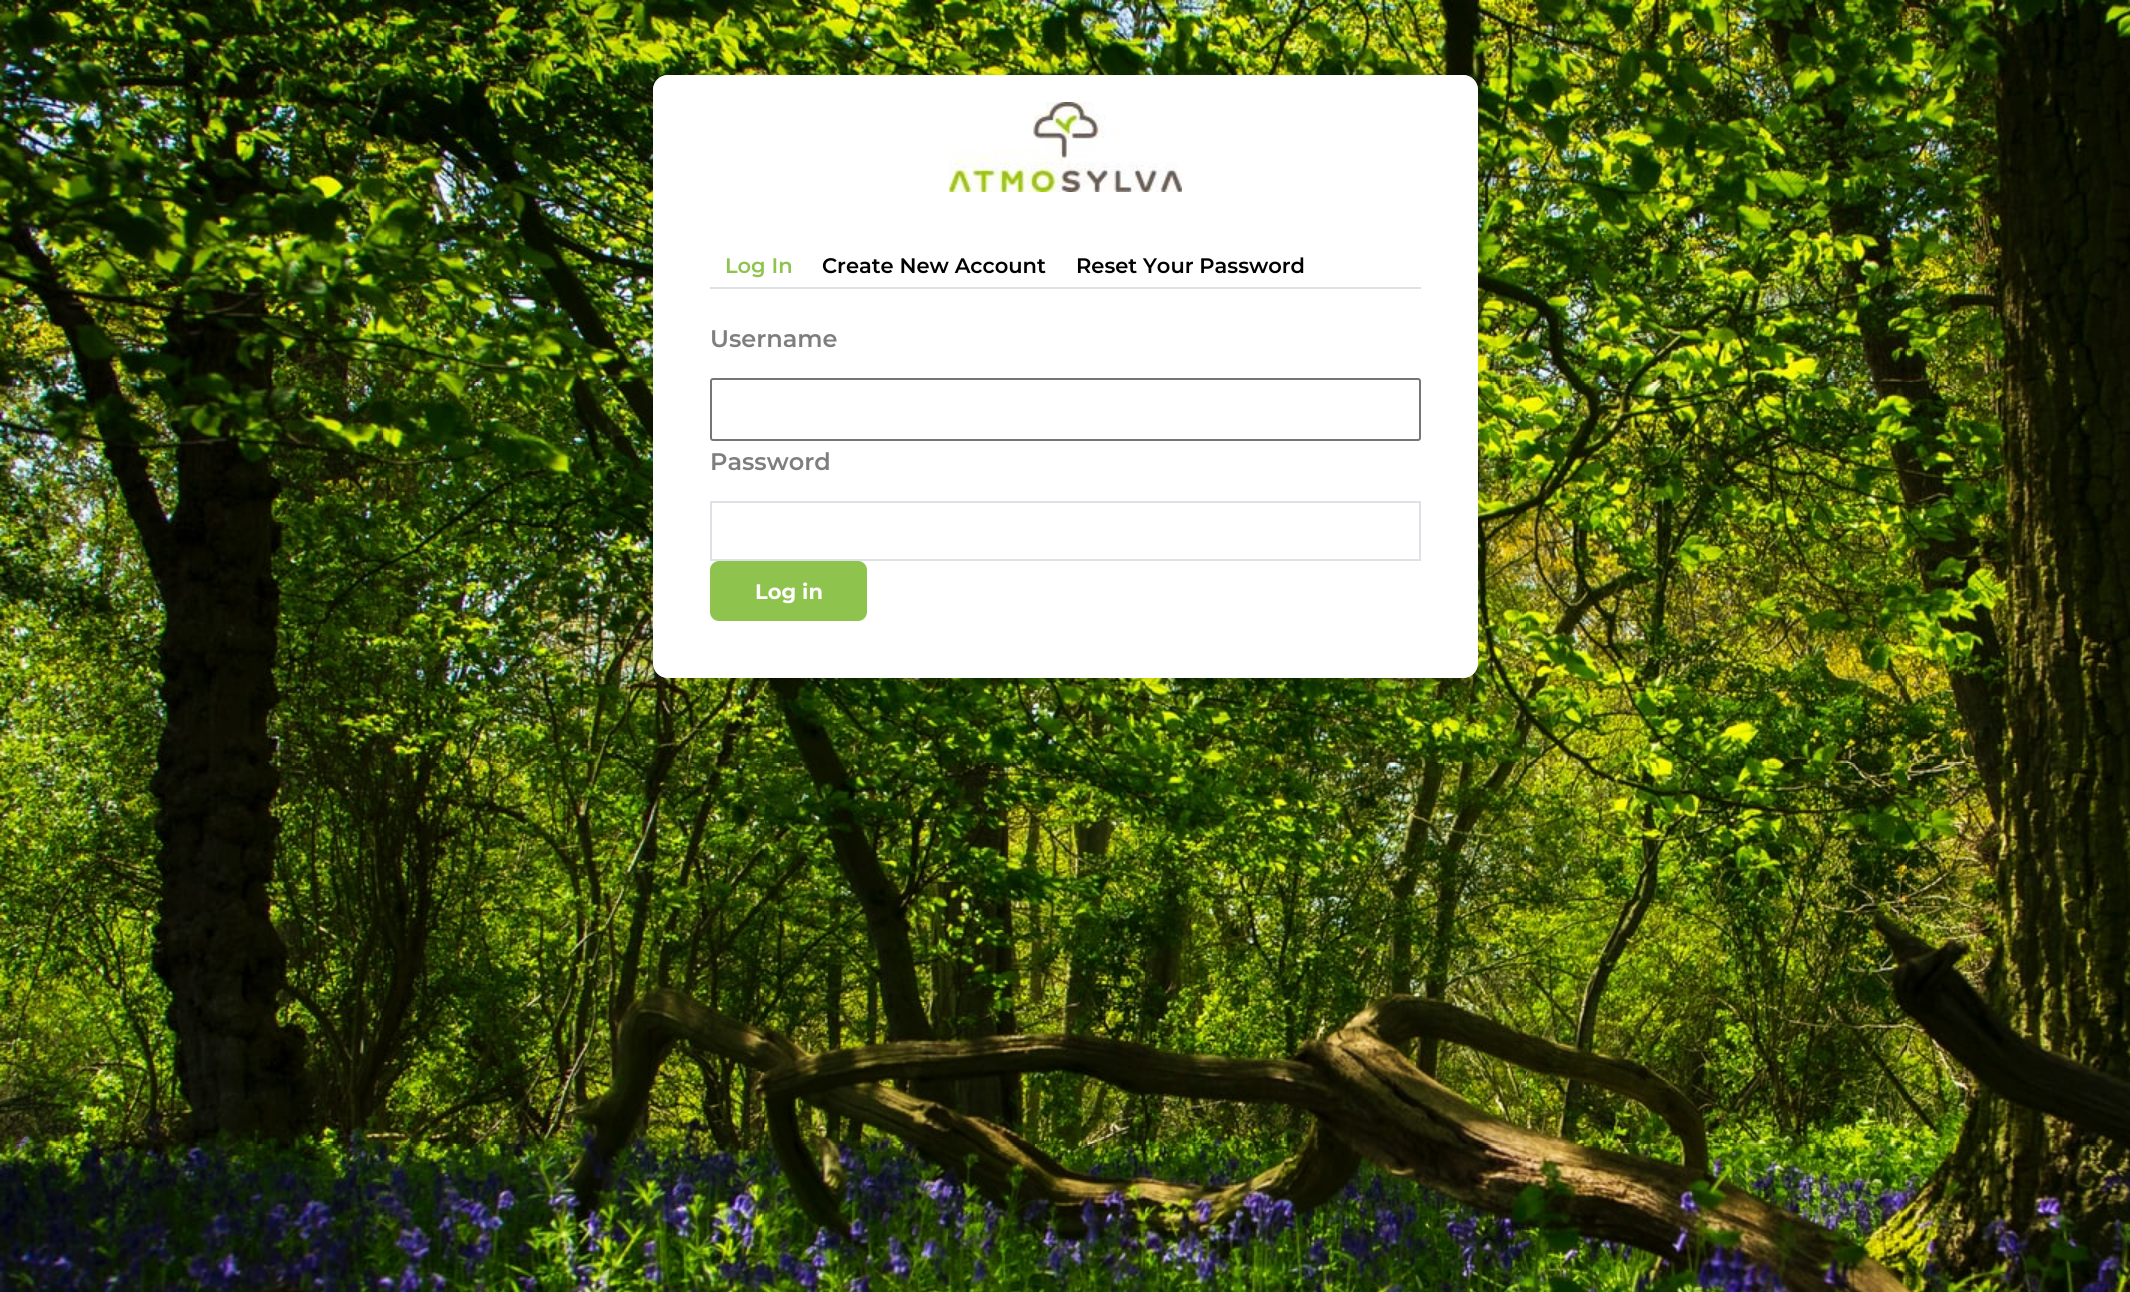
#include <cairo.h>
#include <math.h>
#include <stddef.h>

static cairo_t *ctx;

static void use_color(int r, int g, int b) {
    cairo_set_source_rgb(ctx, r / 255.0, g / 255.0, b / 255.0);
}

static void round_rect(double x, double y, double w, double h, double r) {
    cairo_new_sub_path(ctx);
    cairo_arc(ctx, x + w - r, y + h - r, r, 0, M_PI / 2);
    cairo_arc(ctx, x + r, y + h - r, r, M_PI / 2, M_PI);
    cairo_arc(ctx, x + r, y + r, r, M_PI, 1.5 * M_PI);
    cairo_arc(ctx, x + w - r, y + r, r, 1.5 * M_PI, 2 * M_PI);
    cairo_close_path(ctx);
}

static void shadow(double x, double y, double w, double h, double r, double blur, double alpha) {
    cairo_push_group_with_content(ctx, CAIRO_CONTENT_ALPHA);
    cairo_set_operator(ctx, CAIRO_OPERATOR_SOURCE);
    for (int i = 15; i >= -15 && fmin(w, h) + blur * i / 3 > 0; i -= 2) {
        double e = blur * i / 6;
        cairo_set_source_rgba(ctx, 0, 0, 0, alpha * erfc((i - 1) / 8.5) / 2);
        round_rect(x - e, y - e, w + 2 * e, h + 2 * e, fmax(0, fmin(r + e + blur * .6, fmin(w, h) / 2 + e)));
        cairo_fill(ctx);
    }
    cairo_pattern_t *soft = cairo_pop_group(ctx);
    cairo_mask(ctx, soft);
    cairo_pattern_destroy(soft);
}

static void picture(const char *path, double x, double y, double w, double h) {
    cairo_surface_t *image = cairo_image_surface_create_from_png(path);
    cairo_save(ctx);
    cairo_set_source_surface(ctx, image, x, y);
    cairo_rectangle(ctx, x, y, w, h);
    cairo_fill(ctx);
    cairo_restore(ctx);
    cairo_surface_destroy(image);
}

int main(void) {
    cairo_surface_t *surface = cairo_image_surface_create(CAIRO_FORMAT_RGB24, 2130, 1292);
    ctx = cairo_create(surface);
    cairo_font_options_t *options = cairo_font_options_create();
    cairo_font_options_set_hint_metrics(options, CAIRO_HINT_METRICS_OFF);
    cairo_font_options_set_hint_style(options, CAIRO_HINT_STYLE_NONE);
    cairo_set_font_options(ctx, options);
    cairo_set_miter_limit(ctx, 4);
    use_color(255, 255, 255);
    cairo_paint(ctx);
    picture("img1.png", 0, 0, 2130, 1292);
    use_color(0, 0, 0);
    shadow(653, 75, 825, 603, 15, 7.5, 0.15);
    use_color(255, 255, 255);
    round_rect(653, 75, 825, 603, 15);
    cairo_fill(ctx);
    round_rect(659, 81, 813, 591, 9);
    cairo_set_source_rgba(ctx, 1, 1, 1, 0.8);
    cairo_set_line_width(ctx, 12);
    cairo_stroke(ctx);
    picture("img2.png", 949, 102, 233, 90);
    use_color(222, 226, 230);
    cairo_rectangle(ctx, 710, 287, 711, 2);
    cairo_fill(ctx);
    cairo_select_font_face(ctx, "Montserrat SemiBold", CAIRO_FONT_SLANT_NORMAL, CAIRO_FONT_WEIGHT_NORMAL);
    cairo_set_font_size(ctx, 21);
    use_color(142, 196, 77);
    cairo_move_to(ctx, 725, 273);
    cairo_show_text(ctx, "Log In");
    use_color(0, 0, 0);
    cairo_move_to(ctx, 822, 273);
    cairo_show_text(ctx, "Create New Account");
    cairo_move_to(ctx, 1076, 273);
    cairo_show_text(ctx, "Reset Your Password");
    cairo_set_font_size(ctx, 24);
    use_color(126, 126, 126);
    cairo_move_to(ctx, 710, 347);
    cairo_show_text(ctx, "Username");
    round_rect(711, 379, 709, 61, 2);
    use_color(118, 118, 118);
    cairo_set_line_width(ctx, 2);
    cairo_stroke(ctx);
    use_color(126, 126, 126);
    cairo_move_to(ctx, 710, 470);
    cairo_show_text(ctx, "Password");
    cairo_rectangle(ctx, 711, 502, 709, 58);
    use_color(222, 226, 230);
    cairo_stroke(ctx);
    use_color(142, 196, 77);
    round_rect(710, 561, 157, 60, 9);
    cairo_fill(ctx);
    cairo_select_font_face(ctx, "Montserrat", CAIRO_FONT_SLANT_NORMAL, CAIRO_FONT_WEIGHT_BOLD);
    cairo_set_font_size(ctx, 21);
    use_color(255, 255, 255);
    cairo_move_to(ctx, 755, 599);
    cairo_show_text(ctx, "Log in");
    cairo_surface_write_to_png(surface, "result.png");
    cairo_font_options_destroy(options);
    cairo_destroy(ctx);
    cairo_surface_destroy(surface);
    return 0;
}
